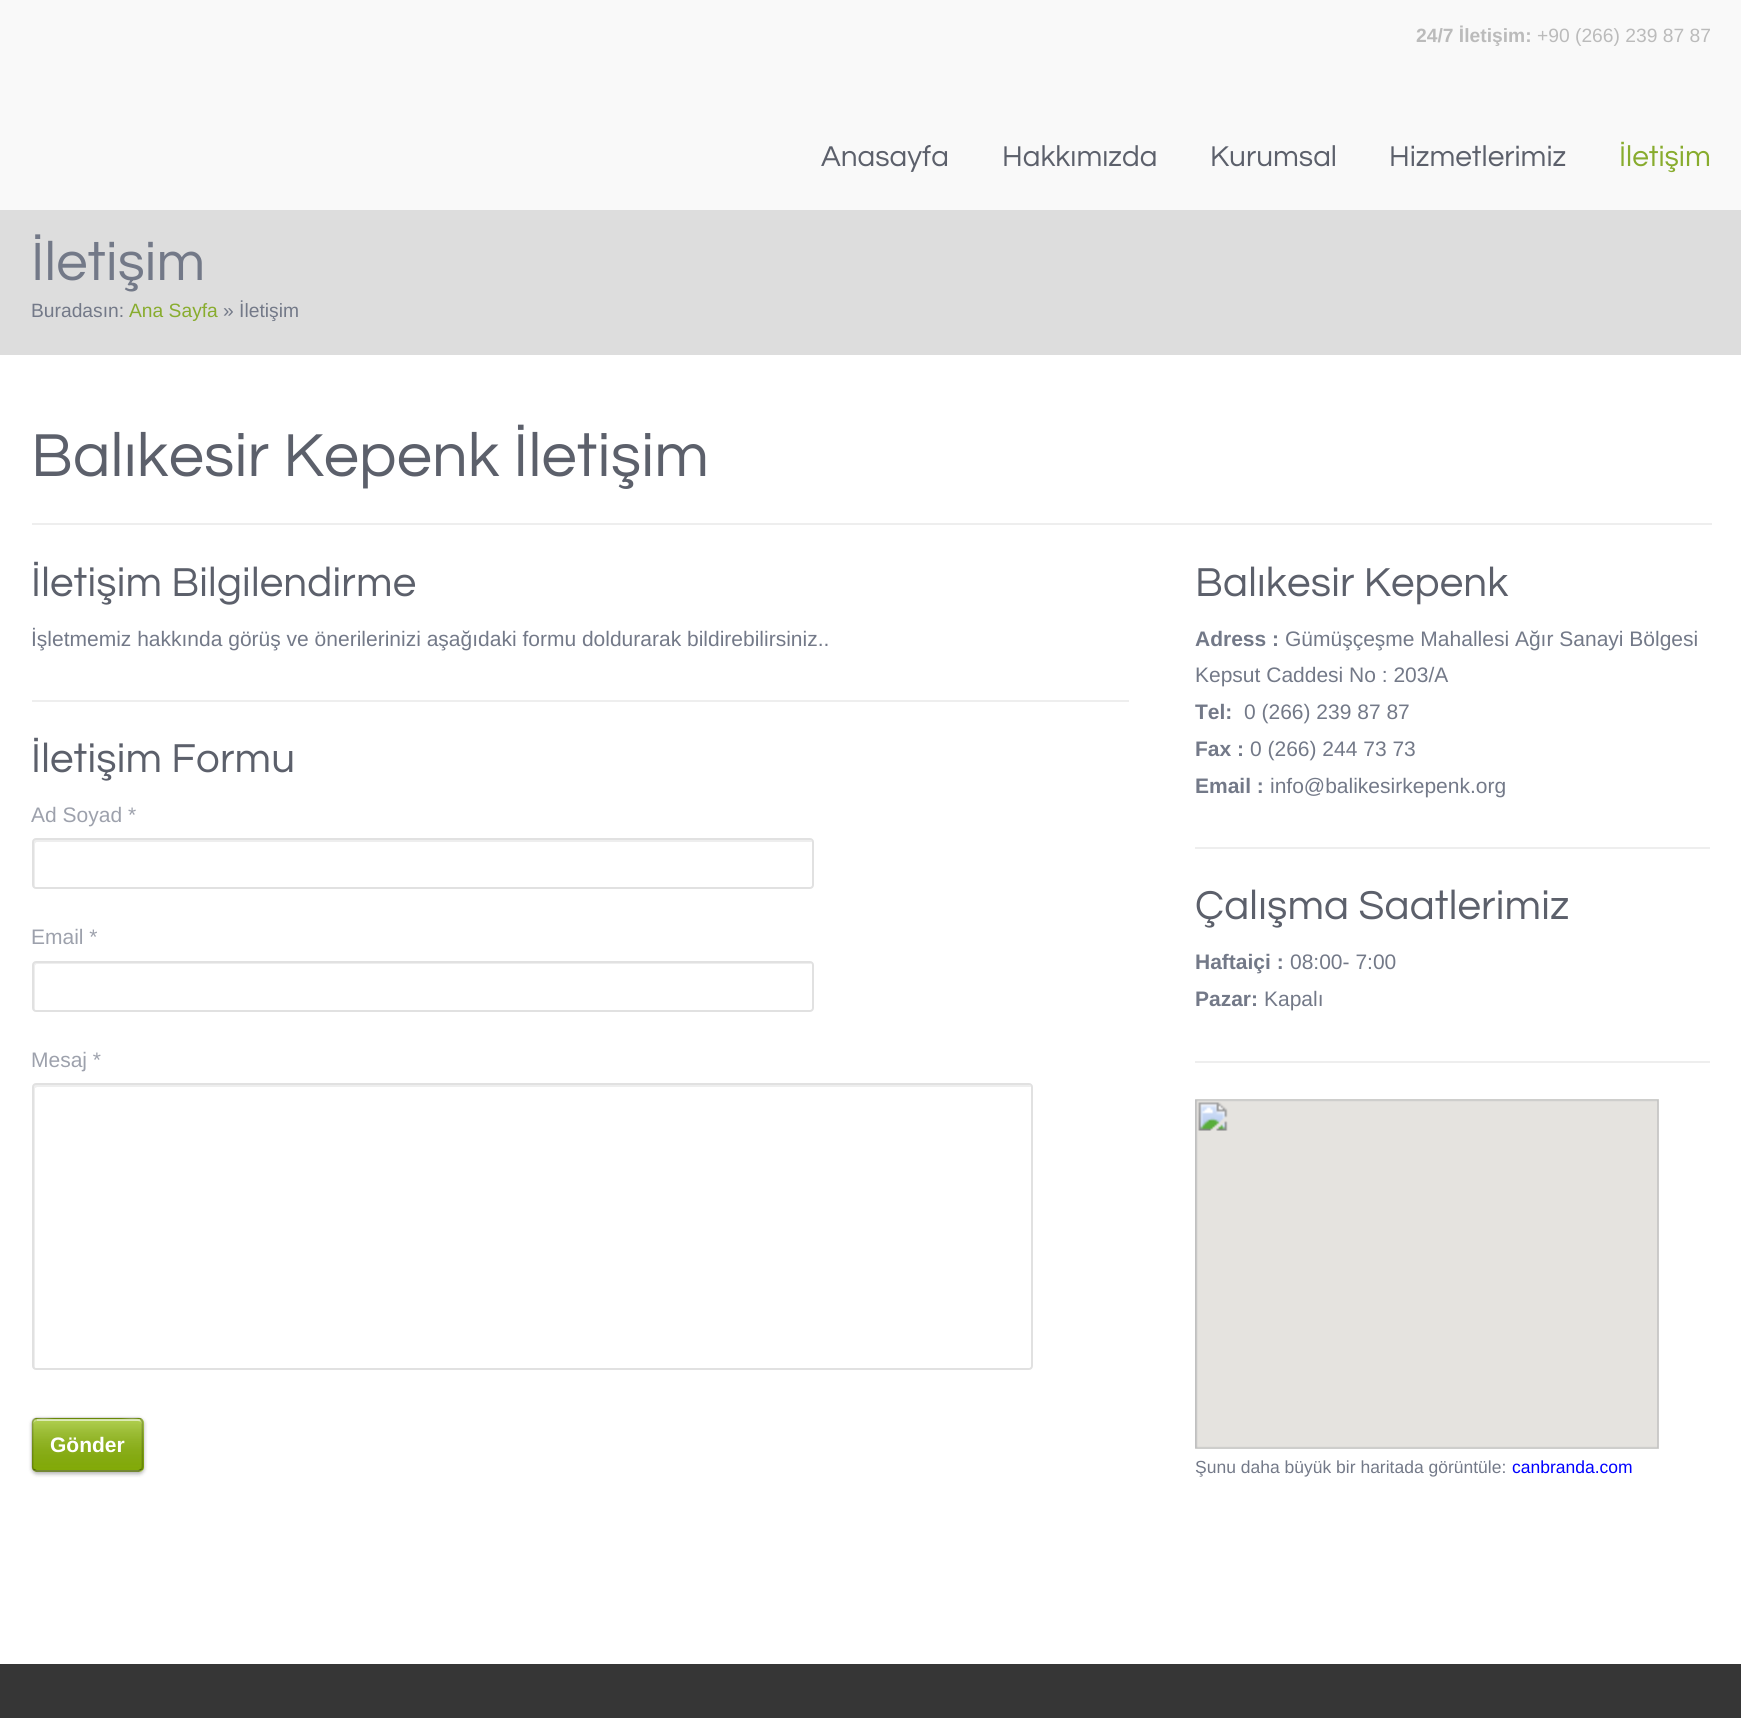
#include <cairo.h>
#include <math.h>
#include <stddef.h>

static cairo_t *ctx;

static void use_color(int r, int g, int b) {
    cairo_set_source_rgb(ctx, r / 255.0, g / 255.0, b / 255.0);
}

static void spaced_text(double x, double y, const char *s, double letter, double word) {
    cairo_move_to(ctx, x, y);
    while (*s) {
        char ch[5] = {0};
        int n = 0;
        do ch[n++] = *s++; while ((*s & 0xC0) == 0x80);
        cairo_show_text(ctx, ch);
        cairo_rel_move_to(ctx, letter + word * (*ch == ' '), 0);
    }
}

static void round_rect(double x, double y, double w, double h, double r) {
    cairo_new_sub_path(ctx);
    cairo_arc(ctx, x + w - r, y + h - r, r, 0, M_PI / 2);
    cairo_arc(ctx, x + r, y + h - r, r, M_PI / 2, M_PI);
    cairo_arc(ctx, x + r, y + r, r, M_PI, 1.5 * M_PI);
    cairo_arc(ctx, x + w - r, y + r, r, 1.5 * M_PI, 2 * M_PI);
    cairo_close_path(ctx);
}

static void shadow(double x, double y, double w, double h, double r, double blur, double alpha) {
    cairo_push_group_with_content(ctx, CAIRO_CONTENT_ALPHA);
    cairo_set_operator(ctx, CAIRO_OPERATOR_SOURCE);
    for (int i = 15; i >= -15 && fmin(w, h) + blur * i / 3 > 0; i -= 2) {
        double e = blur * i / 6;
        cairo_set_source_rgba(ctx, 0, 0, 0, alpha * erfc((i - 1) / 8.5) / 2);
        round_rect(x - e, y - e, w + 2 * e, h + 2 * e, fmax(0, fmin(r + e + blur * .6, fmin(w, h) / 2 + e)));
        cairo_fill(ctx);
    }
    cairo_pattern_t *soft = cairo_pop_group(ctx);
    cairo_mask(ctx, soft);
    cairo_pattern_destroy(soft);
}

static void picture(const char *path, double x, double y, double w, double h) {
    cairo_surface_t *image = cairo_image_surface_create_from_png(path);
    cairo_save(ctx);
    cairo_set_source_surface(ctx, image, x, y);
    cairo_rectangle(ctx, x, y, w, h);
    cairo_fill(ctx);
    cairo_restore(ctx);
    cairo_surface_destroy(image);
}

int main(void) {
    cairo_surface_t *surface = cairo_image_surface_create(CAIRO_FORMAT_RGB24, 1741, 1718);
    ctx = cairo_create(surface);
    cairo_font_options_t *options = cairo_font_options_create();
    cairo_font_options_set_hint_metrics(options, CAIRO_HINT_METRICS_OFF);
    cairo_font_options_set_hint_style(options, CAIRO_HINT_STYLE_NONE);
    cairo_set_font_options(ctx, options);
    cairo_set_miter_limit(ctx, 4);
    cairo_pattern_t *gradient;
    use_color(255, 255, 255);
    cairo_paint(ctx);
    use_color(249, 249, 249);
    cairo_rectangle(ctx, 0, 0, 1741, 210);
    cairo_fill(ctx);
    cairo_select_font_face(ctx, "Liberation Sans", CAIRO_FONT_SLANT_NORMAL, CAIRO_FONT_WEIGHT_BOLD);
    cairo_set_font_size(ctx, 19.25);
    use_color(187, 187, 187);
    cairo_move_to(ctx, 1416, 42);
    cairo_show_text(ctx, "24/7 İletişim:");
    cairo_select_font_face(ctx, "Liberation Sans", CAIRO_FONT_SLANT_NORMAL, CAIRO_FONT_WEIGHT_NORMAL);
    cairo_move_to(ctx, 1537, 42);
    cairo_show_text(ctx, "+90 (266) 239 87 87");
    cairo_select_font_face(ctx, "Questrial", CAIRO_FONT_SLANT_NORMAL, CAIRO_FONT_WEIGHT_NORMAL);
    cairo_set_font_size(ctx, 29.75);
    use_color(92, 96, 107);
    cairo_move_to(ctx, 821, 166);
    cairo_show_text(ctx, "Anasayfa");
    cairo_move_to(ctx, 1002, 166);
    cairo_show_text(ctx, "Hakkımızda");
    cairo_move_to(ctx, 1210, 166);
    cairo_show_text(ctx, "Kurumsal");
    cairo_move_to(ctx, 1389, 166);
    cairo_show_text(ctx, "Hizmetlerimiz");
    use_color(136, 172, 46);
    cairo_move_to(ctx, 1619, 166);
    cairo_show_text(ctx, "İletişim");
    use_color(221, 221, 221);
    cairo_rectangle(ctx, 0, 210, 1741, 145);
    cairo_fill(ctx);
    cairo_set_font_size(ctx, 56);
    use_color(115, 121, 136);
    spaced_text(31, 280, "İletişim", 0.2, 0);
    cairo_select_font_face(ctx, "Liberation Sans", CAIRO_FONT_SLANT_NORMAL, CAIRO_FONT_WEIGHT_NORMAL);
    cairo_set_font_size(ctx, 19.25);
    cairo_move_to(ctx, 31, 317);
    cairo_show_text(ctx, "Buradasın:");
    use_color(136, 172, 46);
    cairo_move_to(ctx, 129, 317);
    cairo_show_text(ctx, "Ana Sayfa");
    use_color(115, 121, 136);
    cairo_move_to(ctx, 223, 317);
    cairo_show_text(ctx, "» İletişim");
    cairo_select_font_face(ctx, "Questrial", CAIRO_FONT_SLANT_NORMAL, CAIRO_FONT_WEIGHT_NORMAL);
    cairo_set_font_size(ctx, 63);
    use_color(92, 96, 107);
    spaced_text(31, 476, "Balıkesir Kepenk İletişim", 0.2, 0);
    use_color(238, 238, 238);
    cairo_rectangle(ctx, 32, 523, 1680, 2);
    cairo_fill(ctx);
    cairo_set_font_size(ctx, 42);
    use_color(92, 96, 107);
    spaced_text(31, 596, "İletişim Bilgilendirme", 0.2, 0);
    cairo_select_font_face(ctx, "Liberation Sans", CAIRO_FONT_SLANT_NORMAL, CAIRO_FONT_WEIGHT_NORMAL);
    cairo_set_font_size(ctx, 21);
    use_color(115, 121, 136);
    cairo_move_to(ctx, 31, 646);
    cairo_show_text(ctx, "İşletmemiz hakkında görüş ve önerilerinizi aşağıdaki formu doldurarak bildirebilirsiniz..");
    use_color(238, 238, 238);
    cairo_rectangle(ctx, 32, 700, 1097, 2);
    cairo_fill(ctx);
    cairo_select_font_face(ctx, "Questrial", CAIRO_FONT_SLANT_NORMAL, CAIRO_FONT_WEIGHT_NORMAL);
    cairo_set_font_size(ctx, 42);
    use_color(92, 96, 107);
    spaced_text(31, 772, "İletişim Formu", 0.2, 0);
    cairo_select_font_face(ctx, "Liberation Sans", CAIRO_FONT_SLANT_NORMAL, CAIRO_FONT_WEIGHT_NORMAL);
    cairo_set_font_size(ctx, 21);
    use_color(157, 161, 172);
    cairo_move_to(ctx, 31, 822);
    cairo_show_text(ctx, "Ad Soyad *");
    use_color(238, 238, 238);
    cairo_new_path(ctx);
    cairo_move_to(ctx, 37, 842);
    cairo_line_to(ctx, 812, 842);
    cairo_curve_to(ctx, 812, 841, 811, 840, 810, 840);
    cairo_line_to(ctx, 35, 840);
    cairo_curve_to(ctx, 34, 840, 33, 841, 33, 842);
    cairo_line_to(ctx, 33, 885);
    cairo_curve_to(ctx, 33, 886, 34, 887, 35, 887);
    cairo_line_to(ctx, 35, 844);
    cairo_curve_to(ctx, 35, 843, 36, 842, 37, 842);
    cairo_close_path(ctx);
    cairo_fill(ctx);
    round_rect(33, 839, 780, 49, 3);
    use_color(225, 225, 225);
    cairo_stroke(ctx);
    use_color(157, 161, 172);
    cairo_move_to(ctx, 31, 944);
    cairo_show_text(ctx, "Email *");
    use_color(238, 238, 238);
    cairo_new_path(ctx);
    cairo_move_to(ctx, 37, 964);
    cairo_line_to(ctx, 812, 964);
    cairo_line_to(ctx, 810, 963);
    cairo_line_to(ctx, 34, 963);
    cairo_line_to(ctx, 33, 965);
    cairo_line_to(ctx, 33, 1008);
    cairo_curve_to(ctx, 33, 1009, 34, 1010, 35, 1010);
    cairo_line_to(ctx, 35, 966);
    cairo_curve_to(ctx, 35, 965, 36, 964, 37, 964);
    cairo_close_path(ctx);
    cairo_fill(ctx);
    round_rect(33, 962, 780, 49, 3);
    use_color(225, 225, 225);
    cairo_stroke(ctx);
    use_color(157, 161, 172);
    cairo_move_to(ctx, 31, 1067);
    cairo_show_text(ctx, "Mesaj *");
    use_color(238, 238, 238);
    cairo_new_path(ctx);
    cairo_move_to(ctx, 37, 1087);
    cairo_line_to(ctx, 1031, 1087);
    cairo_curve_to(ctx, 1031, 1086, 1030, 1085, 1029, 1085);
    cairo_line_to(ctx, 35, 1085);
    cairo_curve_to(ctx, 34, 1085, 33, 1086, 33, 1087);
    cairo_line_to(ctx, 33, 1367);
    cairo_curve_to(ctx, 33, 1368, 34, 1369, 35, 1369);
    cairo_line_to(ctx, 35, 1088);
    cairo_close_path(ctx);
    cairo_fill(ctx);
    round_rect(33, 1084, 999, 285, 3);
    use_color(225, 225, 225);
    cairo_stroke(ctx);
    use_color(0, 0, 0);
    shadow(32, 1419, 112, 55, 5, 2, 0.3);
    use_color(145, 189, 9);
    round_rect(32, 1418, 112, 54, 5);
    cairo_fill(ctx);
    cairo_save(ctx);
    round_rect(32, 1418, 112, 54, 5);
    cairo_clip(ctx);
    gradient = cairo_pattern_create_linear(88, 1369, 88, 1419);
    cairo_pattern_add_color_stop_rgba(gradient, 0, 1, 1, 1, 0.3);
    cairo_pattern_add_color_stop_rgba(gradient, 1, 0, 0, 0, 0.1);
    cairo_set_source(ctx, gradient);
    cairo_pattern_destroy(gradient);
    cairo_rectangle(ctx, 32, 1418, 112, 1);
    cairo_fill(ctx);
    gradient = cairo_pattern_create_linear(88, 1419, 88, 1470);
    cairo_pattern_add_color_stop_rgba(gradient, 0, 1, 1, 1, 0.3);
    cairo_pattern_add_color_stop_rgba(gradient, 1, 0, 0, 0, 0.1);
    cairo_set_source(ctx, gradient);
    cairo_pattern_destroy(gradient);
    cairo_rectangle(ctx, 32, 1419, 112, 51);
    cairo_fill(ctx);
    gradient = cairo_pattern_create_linear(88, 1470, 88, 1521);
    cairo_pattern_add_color_stop_rgba(gradient, 0, 1, 1, 1, 0.3);
    cairo_pattern_add_color_stop_rgba(gradient, 1, 0, 0, 0, 0.1);
    cairo_set_source(ctx, gradient);
    cairo_pattern_destroy(gradient);
    cairo_rectangle(ctx, 32, 1470, 112, 2);
    cairo_fill(ctx);
    cairo_restore(ctx);
    cairo_set_source_rgba(ctx, 1, 1, 1, 0.3);
    cairo_new_path(ctx);
    cairo_move_to(ctx, 37, 1421);
    cairo_line_to(ctx, 138, 1421);
    cairo_line_to(ctx, 141, 1422);
    cairo_line_to(ctx, 142, 1424);
    cairo_curve_to(ctx, 142, 1415, 125, 1419, 121, 1419);
    cairo_line_to(ctx, 54, 1419);
    cairo_curve_to(ctx, 50, 1419, 33, 1415, 33, 1424);
    cairo_curve_to(ctx, 33, 1423, 35, 1421, 37, 1421);
    cairo_close_path(ctx);
    cairo_fill(ctx);
    cairo_new_path(ctx);
    cairo_move_to(ctx, 141.5, 1469.5);
    cairo_line_to(ctx, 138.5, 1471);
    cairo_line_to(ctx, 36.5, 1471);
    cairo_line_to(ctx, 33.5, 1469.5);
    cairo_set_source_rgba(ctx, 0, 0, 0, 0.4);
    cairo_set_line_width(ctx, 1.8);
    cairo_stroke(ctx);
    cairo_new_path(ctx);
    cairo_move_to(ctx, 33.5, 1469.5);
    cairo_curve_to(ctx, 33, 1469, 32.5, 1467.5, 32.5, 1466.5);
    cairo_line_to(ctx, 32.5, 1423);
    cairo_curve_to(ctx, 32.5, 1421.5, 33, 1420.5, 33.5, 1419.5);
    cairo_curve_to(ctx, 34.5, 1419, 35.5, 1418.5, 37, 1418.5);
    cairo_line_to(ctx, 138, 1418.5);
    cairo_curve_to(ctx, 139.5, 1418.5, 140.5, 1419, 141.5, 1419.5);
    cairo_curve_to(ctx, 142, 1420.5, 142.5, 1421.5, 142.5, 1423);
    cairo_line_to(ctx, 142.5, 1466.5);
    cairo_curve_to(ctx, 142.5, 1467.5, 142, 1469, 141.5, 1469.5);
    cairo_set_source_rgba(ctx, 0, 0, 0, 0.2);
    cairo_stroke(ctx);
    cairo_set_source_rgba(ctx, 1, 1, 1, 0.4);
    cairo_rectangle(ctx, 37, 1419, 103, 2);
    cairo_fill(ctx);
    cairo_select_font_face(ctx, "Liberation Sans", CAIRO_FONT_SLANT_NORMAL, CAIRO_FONT_WEIGHT_BOLD);
    use_color(255, 255, 255);
    cairo_move_to(ctx, 50, 1452);
    cairo_show_text(ctx, "Gönder");
    cairo_select_font_face(ctx, "Questrial", CAIRO_FONT_SLANT_NORMAL, CAIRO_FONT_WEIGHT_NORMAL);
    cairo_set_font_size(ctx, 42);
    use_color(92, 96, 107);
    spaced_text(1195, 596, "Balıkesir Kepenk", 0.2, 0);
    cairo_select_font_face(ctx, "Liberation Sans", CAIRO_FONT_SLANT_NORMAL, CAIRO_FONT_WEIGHT_BOLD);
    cairo_set_font_size(ctx, 21);
    use_color(115, 121, 136);
    cairo_move_to(ctx, 1195, 646);
    cairo_show_text(ctx, "Adress :");
    cairo_select_font_face(ctx, "Liberation Sans", CAIRO_FONT_SLANT_NORMAL, CAIRO_FONT_WEIGHT_NORMAL);
    cairo_move_to(ctx, 1285, 646);
    cairo_show_text(ctx, "Gümüşçeşme Mahallesi Ağır Sanayi Bölgesi");
    cairo_move_to(ctx, 1195, 682);
    cairo_show_text(ctx, "Kepsut Caddesi No : 203/A");
    cairo_select_font_face(ctx, "Liberation Sans", CAIRO_FONT_SLANT_NORMAL, CAIRO_FONT_WEIGHT_BOLD);
    cairo_move_to(ctx, 1195, 719);
    cairo_show_text(ctx, "Tel:");
    cairo_select_font_face(ctx, "Liberation Sans", CAIRO_FONT_SLANT_NORMAL, CAIRO_FONT_WEIGHT_NORMAL);
    cairo_move_to(ctx, 1244, 719);
    cairo_show_text(ctx, "0 (266) 239 87 87");
    cairo_select_font_face(ctx, "Liberation Sans", CAIRO_FONT_SLANT_NORMAL, CAIRO_FONT_WEIGHT_BOLD);
    cairo_move_to(ctx, 1195, 756);
    cairo_show_text(ctx, "Fax :");
    cairo_select_font_face(ctx, "Liberation Sans", CAIRO_FONT_SLANT_NORMAL, CAIRO_FONT_WEIGHT_NORMAL);
    cairo_move_to(ctx, 1250, 756);
    cairo_show_text(ctx, "0 (266) 244 73 73");
    cairo_select_font_face(ctx, "Liberation Sans", CAIRO_FONT_SLANT_NORMAL, CAIRO_FONT_WEIGHT_BOLD);
    cairo_move_to(ctx, 1195, 793);
    cairo_show_text(ctx, "Email :");
    cairo_select_font_face(ctx, "Liberation Sans", CAIRO_FONT_SLANT_NORMAL, CAIRO_FONT_WEIGHT_NORMAL);
    cairo_move_to(ctx, 1270, 793);
    cairo_show_text(ctx, "info@balikesirkepenk.org");
    use_color(238, 238, 238);
    cairo_rectangle(ctx, 1195, 847, 515, 2);
    cairo_fill(ctx);
    cairo_select_font_face(ctx, "Questrial", CAIRO_FONT_SLANT_NORMAL, CAIRO_FONT_WEIGHT_NORMAL);
    cairo_set_font_size(ctx, 42);
    use_color(92, 96, 107);
    spaced_text(1195, 919, "Çalışma Saatlerimiz", 0.2, 0);
    cairo_select_font_face(ctx, "Liberation Sans", CAIRO_FONT_SLANT_NORMAL, CAIRO_FONT_WEIGHT_BOLD);
    cairo_set_font_size(ctx, 21);
    use_color(115, 121, 136);
    cairo_move_to(ctx, 1195, 969);
    cairo_show_text(ctx, "Haftaiçi :");
    cairo_select_font_face(ctx, "Liberation Sans", CAIRO_FONT_SLANT_NORMAL, CAIRO_FONT_WEIGHT_NORMAL);
    cairo_move_to(ctx, 1290, 969);
    cairo_show_text(ctx, "08:00- 7:00");
    cairo_select_font_face(ctx, "Liberation Sans", CAIRO_FONT_SLANT_NORMAL, CAIRO_FONT_WEIGHT_BOLD);
    cairo_move_to(ctx, 1195, 1006);
    cairo_show_text(ctx, "Pazar:");
    cairo_select_font_face(ctx, "Liberation Sans", CAIRO_FONT_SLANT_NORMAL, CAIRO_FONT_WEIGHT_NORMAL);
    cairo_move_to(ctx, 1264, 1006);
    cairo_show_text(ctx, "Kapalı");
    use_color(238, 238, 238);
    cairo_rectangle(ctx, 1195, 1061, 515, 2);
    cairo_fill(ctx);
    picture("img1.png", 1195, 1099, 464, 350);
    cairo_set_font_size(ctx, 17.5);
    use_color(115, 121, 136);
    cairo_move_to(ctx, 1195, 1473);
    cairo_show_text(ctx, "Şunu daha büyük bir haritada görüntüle:");
    use_color(0, 0, 255);
    cairo_move_to(ctx, 1512, 1473);
    cairo_show_text(ctx, "canbranda.com");
    use_color(54, 54, 54);
    cairo_rectangle(ctx, 0, 1664, 1741, 54);
    cairo_fill(ctx);
    cairo_surface_write_to_png(surface, "result.png");
    cairo_font_options_destroy(options);
    cairo_destroy(ctx);
    cairo_surface_destroy(surface);
    return 0;
}
